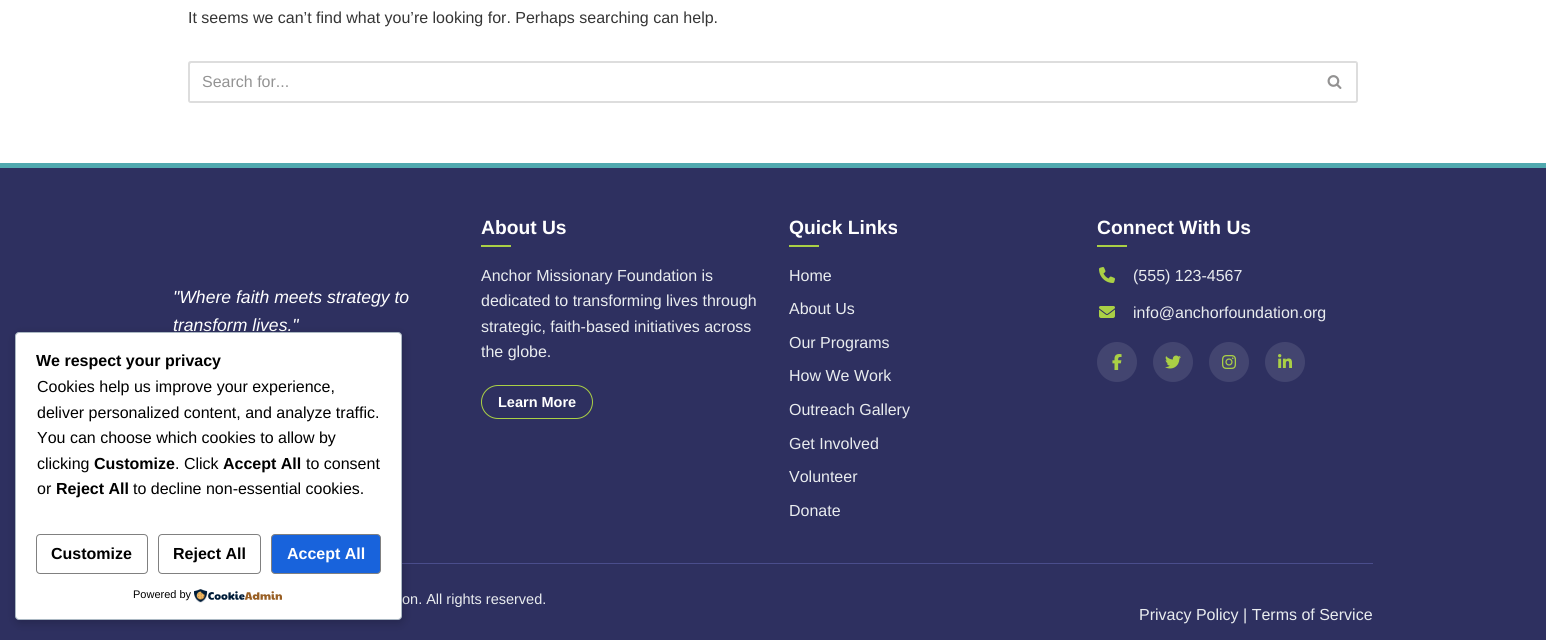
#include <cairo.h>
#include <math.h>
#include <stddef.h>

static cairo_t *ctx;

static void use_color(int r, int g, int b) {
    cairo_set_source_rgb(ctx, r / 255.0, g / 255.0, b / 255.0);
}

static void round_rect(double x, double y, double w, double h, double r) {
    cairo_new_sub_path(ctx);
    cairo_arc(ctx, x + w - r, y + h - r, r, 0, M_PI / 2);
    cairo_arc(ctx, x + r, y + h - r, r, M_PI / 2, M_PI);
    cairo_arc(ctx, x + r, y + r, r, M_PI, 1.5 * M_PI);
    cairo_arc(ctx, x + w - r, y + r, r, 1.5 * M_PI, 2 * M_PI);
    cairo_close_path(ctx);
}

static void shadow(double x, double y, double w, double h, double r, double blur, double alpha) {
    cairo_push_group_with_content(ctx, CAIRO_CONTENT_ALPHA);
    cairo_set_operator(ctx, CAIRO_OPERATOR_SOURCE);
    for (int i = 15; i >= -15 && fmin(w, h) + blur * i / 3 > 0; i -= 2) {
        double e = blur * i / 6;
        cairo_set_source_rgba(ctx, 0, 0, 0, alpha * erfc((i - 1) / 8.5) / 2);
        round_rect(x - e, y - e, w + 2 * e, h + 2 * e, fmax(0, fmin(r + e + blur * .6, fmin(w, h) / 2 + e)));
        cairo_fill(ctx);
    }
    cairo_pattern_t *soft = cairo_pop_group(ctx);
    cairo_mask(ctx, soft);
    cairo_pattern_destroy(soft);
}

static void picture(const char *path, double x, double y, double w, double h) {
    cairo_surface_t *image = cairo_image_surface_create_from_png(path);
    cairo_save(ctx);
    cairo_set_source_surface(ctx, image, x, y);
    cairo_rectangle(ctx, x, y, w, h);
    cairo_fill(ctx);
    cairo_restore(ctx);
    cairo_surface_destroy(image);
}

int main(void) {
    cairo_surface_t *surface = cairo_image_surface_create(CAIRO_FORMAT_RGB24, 1546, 640);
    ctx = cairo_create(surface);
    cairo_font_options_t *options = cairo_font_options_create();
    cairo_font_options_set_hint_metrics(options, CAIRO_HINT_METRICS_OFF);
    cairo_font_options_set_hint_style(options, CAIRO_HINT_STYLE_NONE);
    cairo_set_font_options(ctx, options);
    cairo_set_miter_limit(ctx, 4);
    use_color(255, 255, 255);
    cairo_paint(ctx);
    cairo_select_font_face(ctx, "Liberation Sans", CAIRO_FONT_SLANT_NORMAL, CAIRO_FONT_WEIGHT_NORMAL);
    cairo_set_font_size(ctx, 16);
    use_color(53, 53, 53);
    cairo_move_to(ctx, 188, 23);
    cairo_show_text(ctx, "It seems we can’t find what you’re looking for. Perhaps searching can help.");
    use_color(221, 221, 221);
    cairo_set_fill_rule(ctx, CAIRO_FILL_RULE_EVEN_ODD);
    cairo_new_path(ctx);
    cairo_move_to(ctx, 191, 61);
    cairo_line_to(ctx, 1313, 61);
    cairo_line_to(ctx, 1313, 103);
    cairo_line_to(ctx, 191, 103);
    cairo_curve_to(ctx, 189, 103, 188, 102, 188, 100);
    cairo_line_to(ctx, 188, 64);
    cairo_curve_to(ctx, 188, 62, 189, 61, 191, 61);
    cairo_close_path(ctx);
    cairo_move_to(ctx, 191, 63);
    cairo_line_to(ctx, 1313, 63);
    cairo_line_to(ctx, 1313, 101);
    cairo_line_to(ctx, 191, 101);
    cairo_line_to(ctx, 190, 101);
    cairo_line_to(ctx, 190, 64);
    cairo_close_path(ctx);
    cairo_fill(ctx);
    use_color(147, 147, 147);
    cairo_move_to(ctx, 202, 87);
    cairo_show_text(ctx, "Search for...");
    use_color(221, 221, 221);
    cairo_new_path(ctx);
    cairo_move_to(ctx, 1313, 61);
    cairo_line_to(ctx, 1355, 61);
    cairo_curve_to(ctx, 1357, 61, 1358, 62, 1358, 64);
    cairo_line_to(ctx, 1358, 100);
    cairo_curve_to(ctx, 1358, 102, 1357, 103, 1355, 103);
    cairo_line_to(ctx, 1313, 103);
    cairo_close_path(ctx);
    cairo_move_to(ctx, 1313, 63);
    cairo_line_to(ctx, 1355, 63);
    cairo_curve_to(ctx, 1356, 63, 1356, 63, 1356, 64);
    cairo_line_to(ctx, 1356, 100);
    cairo_curve_to(ctx, 1356, 101, 1356, 101, 1355, 101);
    cairo_line_to(ctx, 1313, 101);
    cairo_close_path(ctx);
    cairo_fill(ctx);
    picture("img1.png", 1327, 75, 15, 14);
    use_color(46, 48, 96);
    cairo_rectangle(ctx, 0, 168, 1546, 472);
    cairo_fill(ctx);
    use_color(80, 169, 175);
    cairo_rectangle(ctx, 0, 163, 1546, 5);
    cairo_fill(ctx);
    cairo_select_font_face(ctx, "Liberation Sans", CAIRO_FONT_SLANT_ITALIC, CAIRO_FONT_WEIGHT_NORMAL);
    cairo_set_font_size(ctx, 17.6);
    use_color(255, 255, 255);
    cairo_move_to(ctx, 173, 303);
    cairo_show_text(ctx, "\"Where faith meets strategy to");
    cairo_move_to(ctx, 173, 331);
    cairo_show_text(ctx, "transform lives.\"");
    cairo_select_font_face(ctx, "Liberation Sans", CAIRO_FONT_SLANT_NORMAL, CAIRO_FONT_WEIGHT_BOLD);
    cairo_set_font_size(ctx, 19.25);
    cairo_move_to(ctx, 481, 234);
    cairo_show_text(ctx, "About Us");
    use_color(170, 208, 69);
    cairo_rectangle(ctx, 481, 245, 30, 2);
    cairo_fill(ctx);
    cairo_select_font_face(ctx, "Liberation Sans", CAIRO_FONT_SLANT_NORMAL, CAIRO_FONT_WEIGHT_NORMAL);
    cairo_set_font_size(ctx, 16);
    use_color(233, 236, 239);
    cairo_move_to(ctx, 481, 281);
    cairo_show_text(ctx, "Anchor Missionary Foundation is");
    cairo_move_to(ctx, 481, 306);
    cairo_show_text(ctx, "dedicated to transforming lives through");
    cairo_move_to(ctx, 481, 332);
    cairo_show_text(ctx, "strategic, faith-based initiatives across");
    cairo_move_to(ctx, 481, 357);
    cairo_show_text(ctx, "the globe.");
    round_rect(481.5, 385.5, 111, 33, 16.5);
    use_color(170, 208, 69);
    cairo_set_line_width(ctx, 1);
    cairo_stroke(ctx);
    cairo_select_font_face(ctx, "Liberation Sans", CAIRO_FONT_SLANT_NORMAL, CAIRO_FONT_WEIGHT_BOLD);
    cairo_set_font_size(ctx, 14.5);
    use_color(255, 255, 255);
    cairo_move_to(ctx, 498, 407);
    cairo_show_text(ctx, "Learn More");
    cairo_set_font_size(ctx, 19.25);
    cairo_move_to(ctx, 789, 234);
    cairo_show_text(ctx, "Quick Links");
    use_color(170, 208, 69);
    cairo_rectangle(ctx, 789, 245, 30, 2);
    cairo_fill(ctx);
    cairo_select_font_face(ctx, "Liberation Sans", CAIRO_FONT_SLANT_NORMAL, CAIRO_FONT_WEIGHT_NORMAL);
    cairo_set_font_size(ctx, 16);
    use_color(233, 236, 239);
    cairo_move_to(ctx, 789, 281);
    cairo_show_text(ctx, "Home");
    cairo_move_to(ctx, 789, 314);
    cairo_show_text(ctx, "About Us");
    cairo_move_to(ctx, 789, 348);
    cairo_show_text(ctx, "Our Programs");
    cairo_move_to(ctx, 789, 381);
    cairo_show_text(ctx, "How We Work");
    cairo_move_to(ctx, 789, 415);
    cairo_show_text(ctx, "Outreach Gallery");
    cairo_move_to(ctx, 789, 449);
    cairo_show_text(ctx, "Get Involved");
    cairo_move_to(ctx, 789, 482);
    cairo_show_text(ctx, "Volunteer");
    cairo_move_to(ctx, 789, 516);
    cairo_show_text(ctx, "Donate");
    cairo_select_font_face(ctx, "Liberation Sans", CAIRO_FONT_SLANT_NORMAL, CAIRO_FONT_WEIGHT_BOLD);
    cairo_set_font_size(ctx, 19.25);
    use_color(255, 255, 255);
    cairo_move_to(ctx, 1097, 234);
    cairo_show_text(ctx, "Connect With Us");
    use_color(170, 208, 69);
    cairo_rectangle(ctx, 1097, 245, 30, 2);
    cairo_fill(ctx);
    picture("img2.png", 1099, 267, 16, 16);
    cairo_select_font_face(ctx, "Liberation Sans", CAIRO_FONT_SLANT_NORMAL, CAIRO_FONT_WEIGHT_NORMAL);
    cairo_set_font_size(ctx, 16);
    use_color(233, 236, 239);
    cairo_move_to(ctx, 1133, 281);
    cairo_show_text(ctx, "(555) 123-4567");
    picture("img3.png", 1099, 306, 16, 12);
    cairo_move_to(ctx, 1133, 318);
    cairo_show_text(ctx, "info@anchorfoundation.org");
    use_color(67, 69, 112);
    cairo_new_path(ctx);
    cairo_arc(ctx, 1117, 362, 20, 0, 2 * M_PI);
    cairo_fill(ctx);
    picture("img4.png", 1112, 354, 10, 16);
    cairo_arc(ctx, 1173, 362, 20, 0, 2 * M_PI);
    cairo_fill(ctx);
    picture("img5.png", 1165, 355, 16, 14);
    cairo_arc(ctx, 1229, 362, 20, 0, 2 * M_PI);
    cairo_fill(ctx);
    picture("img6.png", 1222, 355, 14, 14);
    cairo_arc(ctx, 1285, 362, 20, 0, 2 * M_PI);
    cairo_fill(ctx);
    picture("img7.png", 1278, 354, 14, 14);
    use_color(74, 77, 140);
    cairo_rectangle(ctx, 402, 563, 971, 1);
    cairo_fill(ctx);
    cairo_set_font_size(ctx, 14.5);
    use_color(233, 236, 239);
    cairo_move_to(ctx, 402, 604);
    cairo_show_text(ctx, "on. All rights reserved.");
    cairo_set_font_size(ctx, 16);
    cairo_move_to(ctx, 1139, 620);
    cairo_show_text(ctx, "Privacy Policy | Terms of Service");
    use_color(0, 0, 0);
    shadow(16, 335, 387, 288, 4, 5, 0.2);
    use_color(255, 255, 255);
    round_rect(15.5, 332.5, 386, 287, 3.5);
    cairo_fill_preserve(ctx);
    use_color(171, 184, 195);
    cairo_stroke(ctx);
    cairo_select_font_face(ctx, "Liberation Sans", CAIRO_FONT_SLANT_NORMAL, CAIRO_FONT_WEIGHT_BOLD);
    use_color(0, 0, 0);
    cairo_move_to(ctx, 36, 366);
    cairo_show_text(ctx, "We respect your privacy");
    cairo_select_font_face(ctx, "Liberation Sans", CAIRO_FONT_SLANT_NORMAL, CAIRO_FONT_WEIGHT_NORMAL);
    cairo_move_to(ctx, 37, 392);
    cairo_show_text(ctx, "Cookies help us improve your experience,");
    cairo_move_to(ctx, 37, 418);
    cairo_show_text(ctx, "deliver personalized content, and analyze traffic.");
    cairo_move_to(ctx, 37, 443);
    cairo_show_text(ctx, "You can choose which cookies to allow by");
    cairo_move_to(ctx, 37, 469);
    cairo_show_text(ctx, "clicking");
    cairo_select_font_face(ctx, "Liberation Sans", CAIRO_FONT_SLANT_NORMAL, CAIRO_FONT_WEIGHT_BOLD);
    cairo_move_to(ctx, 94, 469);
    cairo_show_text(ctx, "Customize");
    cairo_select_font_face(ctx, "Liberation Sans", CAIRO_FONT_SLANT_NORMAL, CAIRO_FONT_WEIGHT_NORMAL);
    cairo_move_to(ctx, 175, 469);
    cairo_show_text(ctx, ". Click");
    cairo_select_font_face(ctx, "Liberation Sans", CAIRO_FONT_SLANT_NORMAL, CAIRO_FONT_WEIGHT_BOLD);
    cairo_move_to(ctx, 223, 469);
    cairo_show_text(ctx, "Accept All");
    cairo_select_font_face(ctx, "Liberation Sans", CAIRO_FONT_SLANT_NORMAL, CAIRO_FONT_WEIGHT_NORMAL);
    cairo_move_to(ctx, 306, 469);
    cairo_show_text(ctx, "to consent");
    cairo_move_to(ctx, 37, 494);
    cairo_show_text(ctx, "or");
    cairo_select_font_face(ctx, "Liberation Sans", CAIRO_FONT_SLANT_NORMAL, CAIRO_FONT_WEIGHT_BOLD);
    cairo_move_to(ctx, 56, 494);
    cairo_show_text(ctx, "Reject All");
    cairo_select_font_face(ctx, "Liberation Sans", CAIRO_FONT_SLANT_NORMAL, CAIRO_FONT_WEIGHT_NORMAL);
    cairo_move_to(ctx, 133, 494);
    cairo_show_text(ctx, "to decline non-essential cookies.");
    round_rect(36.5, 534.5, 111, 39, 3.5);
    use_color(128, 128, 128);
    cairo_stroke(ctx);
    cairo_select_font_face(ctx, "Liberation Sans", CAIRO_FONT_SLANT_NORMAL, CAIRO_FONT_WEIGHT_BOLD);
    use_color(0, 0, 0);
    cairo_move_to(ctx, 51, 559);
    cairo_show_text(ctx, "Customize");
    round_rect(158.5, 534.5, 102, 39, 3.5);
    use_color(128, 128, 128);
    cairo_stroke(ctx);
    use_color(0, 0, 0);
    cairo_move_to(ctx, 173, 559);
    cairo_show_text(ctx, "Reject All");
    use_color(24, 99, 220);
    round_rect(271.5, 534.5, 109, 39, 3.5);
    cairo_fill_preserve(ctx);
    use_color(128, 128, 128);
    cairo_stroke(ctx);
    use_color(255, 255, 255);
    cairo_move_to(ctx, 287, 559);
    cairo_show_text(ctx, "Accept All");
    cairo_select_font_face(ctx, "Liberation Sans", CAIRO_FONT_SLANT_NORMAL, CAIRO_FONT_WEIGHT_NORMAL);
    cairo_set_font_size(ctx, 11);
    use_color(0, 0, 0);
    cairo_move_to(ctx, 133, 598);
    cairo_show_text(ctx, "Powered by");
    picture("img8.png", 194, 589, 88, 14);
    cairo_surface_write_to_png(surface, "result.png");
    cairo_font_options_destroy(options);
    cairo_destroy(ctx);
    cairo_surface_destroy(surface);
    return 0;
}
